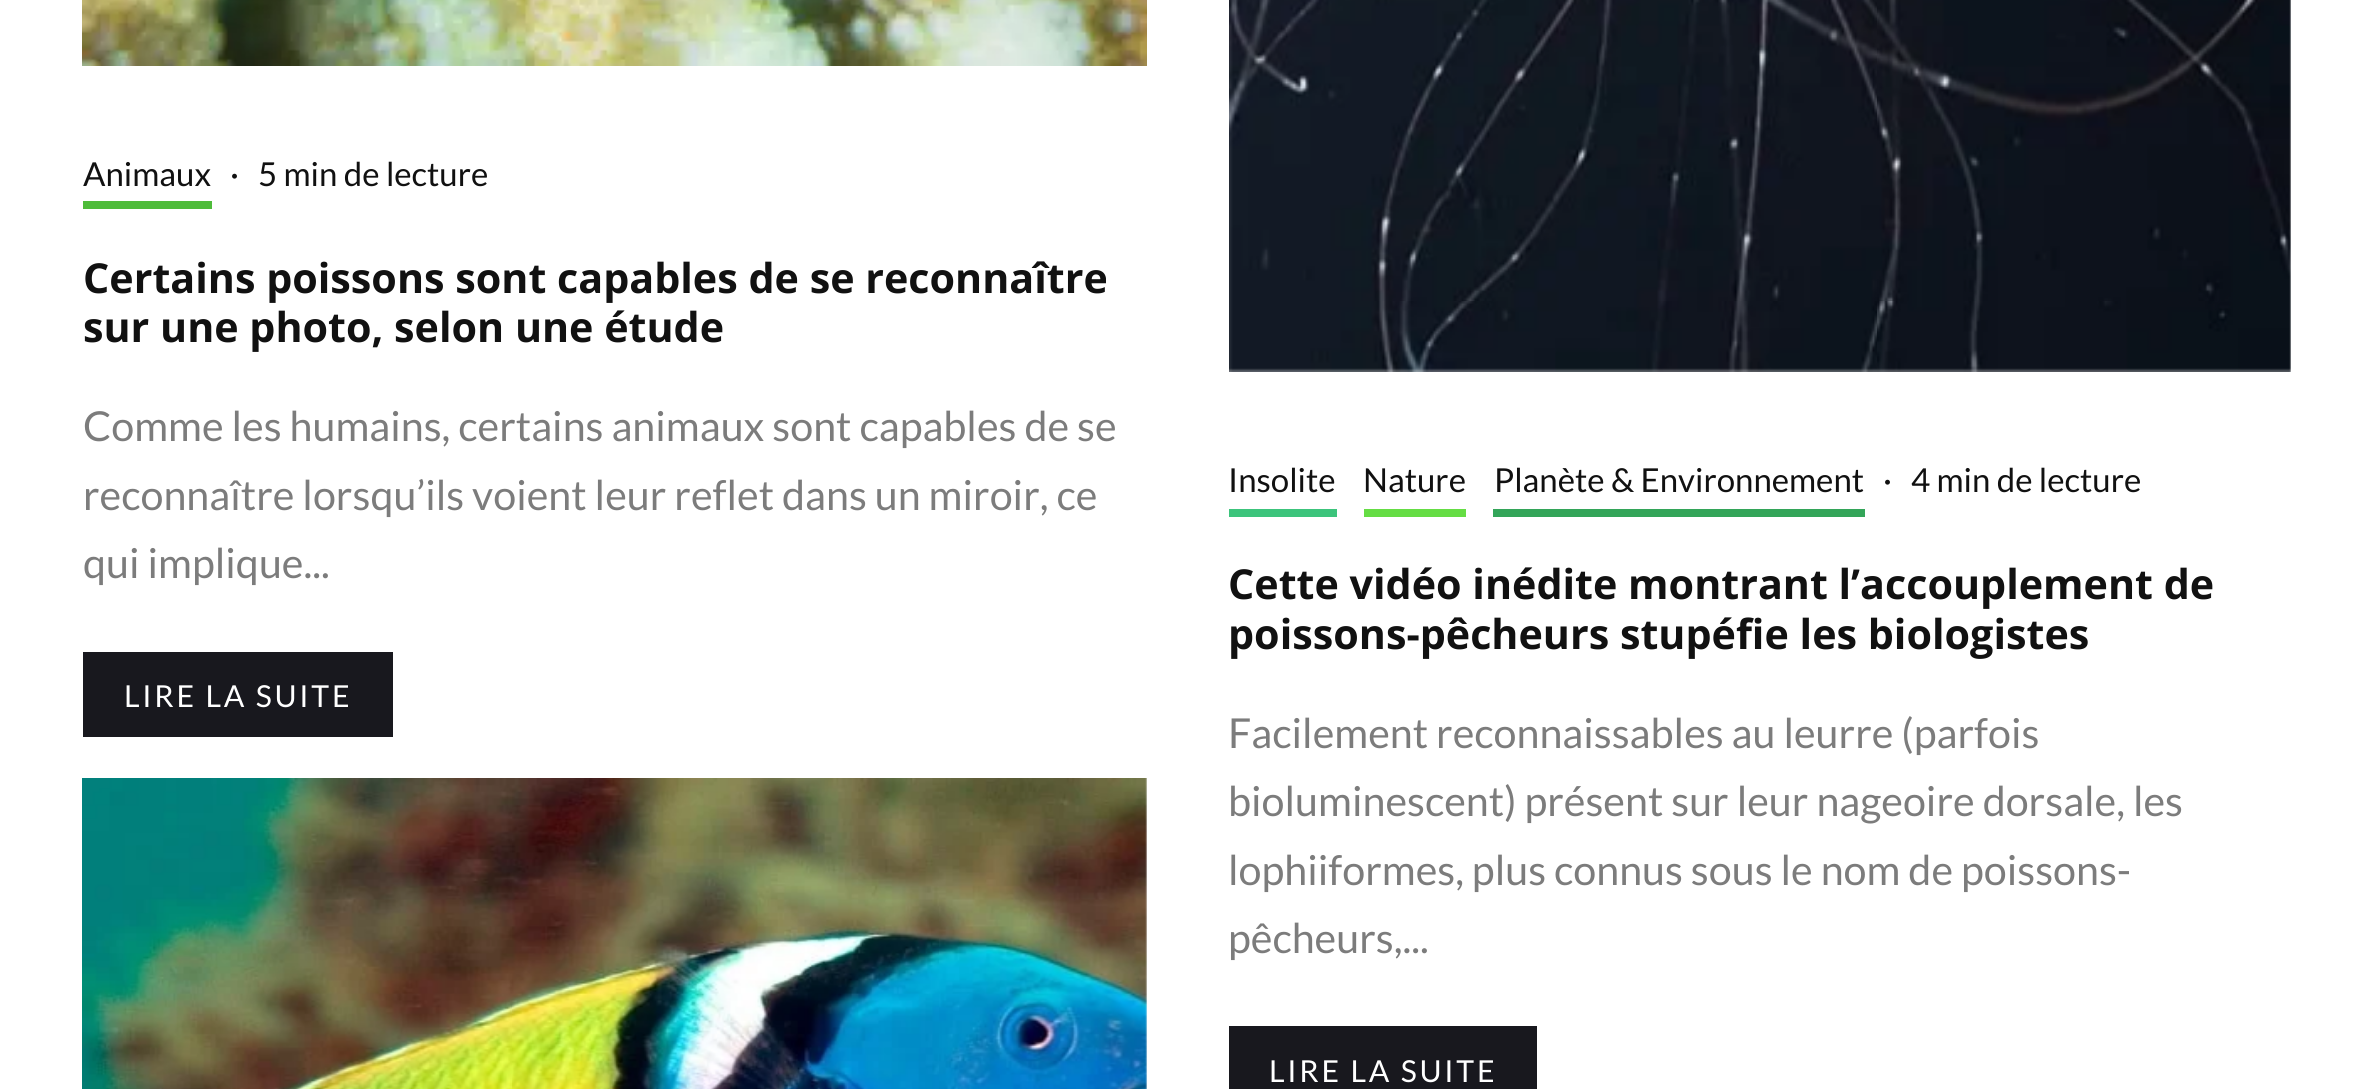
#include <cairo.h>
#include <math.h>
#include <stddef.h>

static cairo_t *ctx;

static void use_color(int r, int g, int b) {
    cairo_set_source_rgb(ctx, r / 255.0, g / 255.0, b / 255.0);
}

static void spaced_text(double x, double y, const char *s, double letter, double word) {
    cairo_move_to(ctx, x, y);
    while (*s) {
        char ch[5] = {0};
        int n = 0;
        do ch[n++] = *s++; while ((*s & 0xC0) == 0x80);
        cairo_show_text(ctx, ch);
        cairo_rel_move_to(ctx, letter + word * (*ch == ' '), 0);
    }
}

static void picture(const char *path, double x, double y, double w, double h) {
    cairo_surface_t *image = cairo_image_surface_create_from_png(path);
    cairo_save(ctx);
    cairo_set_source_surface(ctx, image, x, y);
    cairo_rectangle(ctx, x, y, w, h);
    cairo_fill(ctx);
    cairo_restore(ctx);
    cairo_surface_destroy(image);
}

int main(void) {
    cairo_surface_t *surface = cairo_image_surface_create(CAIRO_FORMAT_RGB24, 2373, 1089);
    ctx = cairo_create(surface);
    cairo_font_options_t *options = cairo_font_options_create();
    cairo_font_options_set_hint_metrics(options, CAIRO_HINT_METRICS_OFF);
    cairo_font_options_set_hint_style(options, CAIRO_HINT_STYLE_NONE);
    cairo_set_font_options(ctx, options);
    cairo_set_miter_limit(ctx, 4);
    use_color(255, 255, 255);
    cairo_paint(ctx);
    picture("img1.png", 82, 0, 1065, 66);
    use_color(78, 188, 58);
    cairo_rectangle(ctx, 83, 201, 129, 8);
    cairo_fill(ctx);
    cairo_select_font_face(ctx, "Lato", CAIRO_FONT_SLANT_NORMAL, CAIRO_FONT_WEIGHT_NORMAL);
    cairo_set_font_size(ctx, 33);
    use_color(17, 17, 17);
    cairo_move_to(ctx, 83, 186);
    cairo_show_text(ctx, "Animaux");
    cairo_move_to(ctx, 230, 186);
    cairo_show_text(ctx, "·");
    cairo_move_to(ctx, 258, 186);
    cairo_show_text(ctx, "5 min de lecture");
    cairo_select_font_face(ctx, "Open Sans", CAIRO_FONT_SLANT_NORMAL, CAIRO_FONT_WEIGHT_BOLD);
    cairo_set_font_size(ctx, 41.25);
    cairo_move_to(ctx, 83, 293);
    cairo_show_text(ctx, "Certains poissons sont capables de se reconnaître");
    cairo_move_to(ctx, 83, 342);
    cairo_show_text(ctx, "sur une photo, selon une étude");
    cairo_select_font_face(ctx, "Lato", CAIRO_FONT_SLANT_NORMAL, CAIRO_FONT_WEIGHT_NORMAL);
    use_color(124, 124, 124);
    cairo_move_to(ctx, 83, 441);
    cairo_show_text(ctx, "Comme les humains, certains animaux sont capables de se");
    cairo_move_to(ctx, 83, 510);
    cairo_show_text(ctx, "reconnaître lorsqu’ils voient leur reflet dans un miroir, ce");
    cairo_move_to(ctx, 83, 578);
    cairo_show_text(ctx, "qui implique...");
    use_color(24, 24, 30);
    cairo_rectangle(ctx, 83, 652, 310, 85);
    cairo_fill(ctx);
    cairo_set_font_size(ctx, 30.25);
    use_color(255, 255, 255);
    spaced_text(124, 707, "LIRE LA SUITE", 2.75, 0);
    use_color(238, 238, 238);
    cairo_rectangle(ctx, 1145, 778, 2, 311);
    cairo_fill(ctx);
    picture("img2.png", 82, 778, 1065, 311);
    cairo_rectangle(ctx, 1229, 0, 1062, 371);
    cairo_fill(ctx);
    picture("img3.png", 1229, 0, 1062, 372);
    use_color(60, 196, 124);
    cairo_rectangle(ctx, 1229, 509, 108, 8);
    cairo_fill(ctx);
    cairo_set_font_size(ctx, 33);
    use_color(17, 17, 17);
    cairo_move_to(ctx, 1228, 492);
    cairo_show_text(ctx, "Insolite");
    use_color(101, 221, 68);
    cairo_rectangle(ctx, 1364, 509, 102, 8);
    cairo_fill(ctx);
    use_color(17, 17, 17);
    cairo_move_to(ctx, 1363, 492);
    cairo_show_text(ctx, "Nature");
    use_color(51, 165, 89);
    cairo_rectangle(ctx, 1493, 509, 372, 8);
    cairo_fill(ctx);
    use_color(17, 17, 17);
    cairo_move_to(ctx, 1494, 492);
    cairo_show_text(ctx, "Planète & Environnement");
    cairo_move_to(ctx, 1883, 492);
    cairo_show_text(ctx, "·");
    cairo_move_to(ctx, 1911, 492);
    cairo_show_text(ctx, "4 min de lecture");
    cairo_select_font_face(ctx, "Open Sans", CAIRO_FONT_SLANT_NORMAL, CAIRO_FONT_WEIGHT_BOLD);
    cairo_set_font_size(ctx, 41.25);
    cairo_move_to(ctx, 1228, 599);
    cairo_show_text(ctx, "Cette vidéo inédite montrant l’accouplement de");
    cairo_move_to(ctx, 1228, 649);
    cairo_show_text(ctx, "poissons-pêcheurs stupéfie les biologistes");
    cairo_select_font_face(ctx, "Lato", CAIRO_FONT_SLANT_NORMAL, CAIRO_FONT_WEIGHT_NORMAL);
    use_color(124, 124, 124);
    cairo_move_to(ctx, 1228, 748);
    cairo_show_text(ctx, "Facilement reconnaissables au leurre (parfois");
    cairo_move_to(ctx, 1228, 816);
    cairo_show_text(ctx, "bioluminescent) présent sur leur nageoire dorsale, les");
    cairo_move_to(ctx, 1228, 885);
    cairo_show_text(ctx, "lophiiformes, plus connus sous le nom de poissons-");
    cairo_move_to(ctx, 1228, 953);
    cairo_show_text(ctx, "pêcheurs,...");
    use_color(24, 24, 30);
    cairo_rectangle(ctx, 1229, 1026, 308, 63);
    cairo_fill(ctx);
    cairo_set_font_size(ctx, 30.25);
    use_color(255, 255, 255);
    spaced_text(1269, 1082, "LIRE LA SUITE", 2.75, 0);
    cairo_surface_write_to_png(surface, "result.png");
    cairo_font_options_destroy(options);
    cairo_destroy(ctx);
    cairo_surface_destroy(surface);
    return 0;
}
